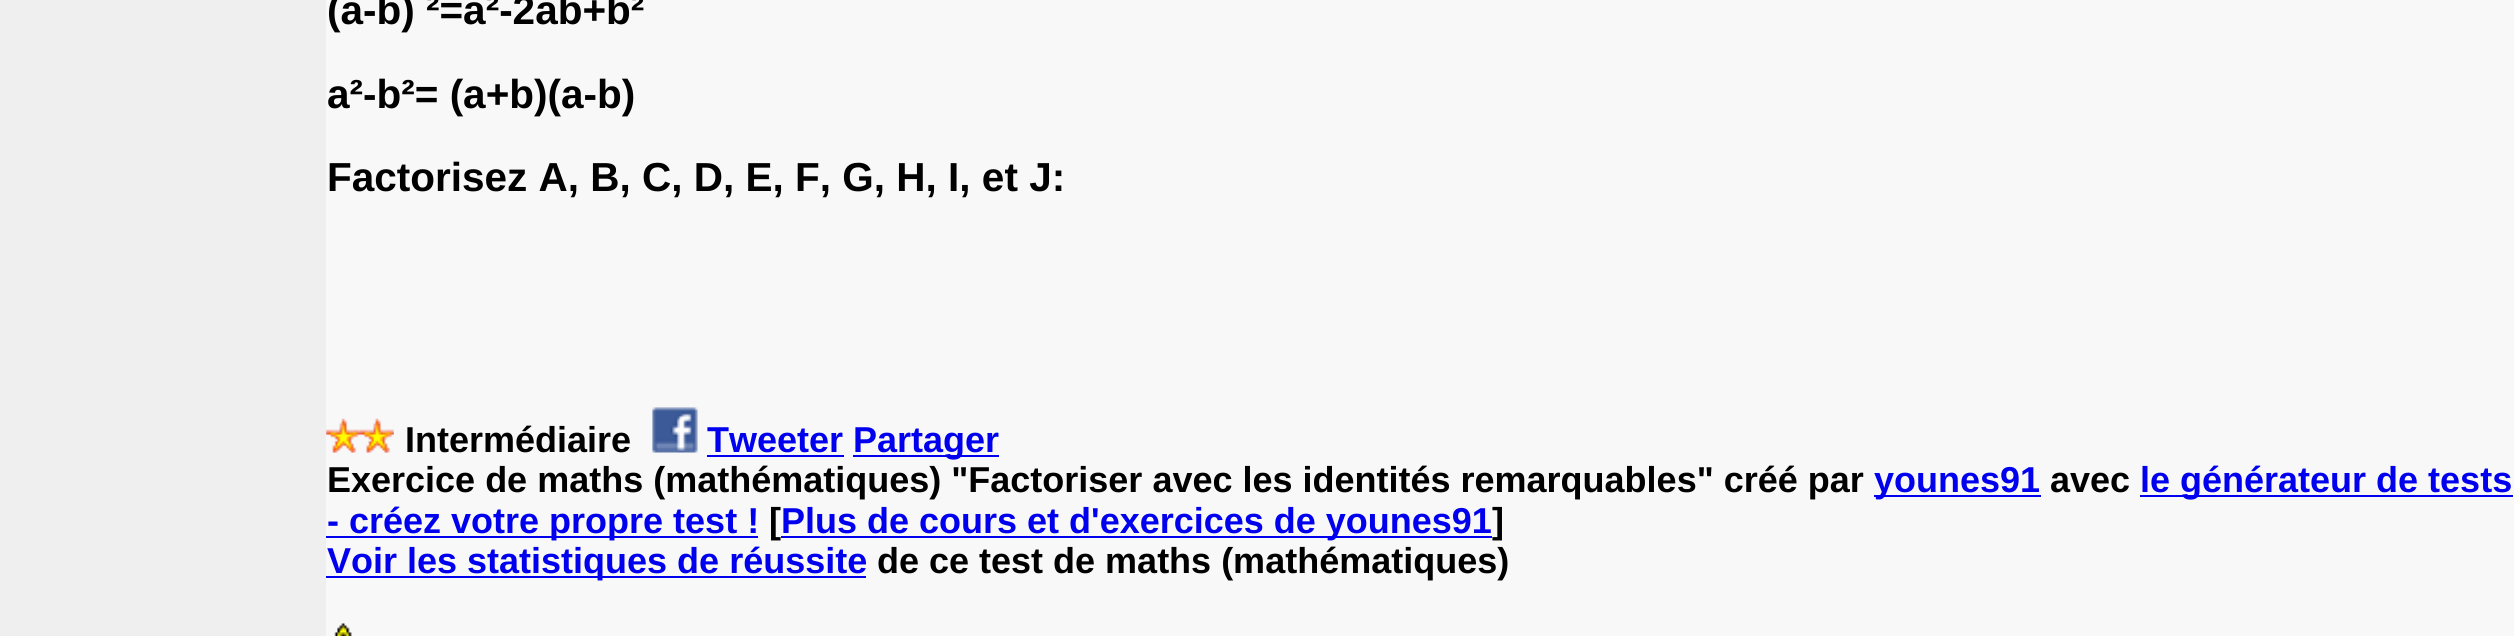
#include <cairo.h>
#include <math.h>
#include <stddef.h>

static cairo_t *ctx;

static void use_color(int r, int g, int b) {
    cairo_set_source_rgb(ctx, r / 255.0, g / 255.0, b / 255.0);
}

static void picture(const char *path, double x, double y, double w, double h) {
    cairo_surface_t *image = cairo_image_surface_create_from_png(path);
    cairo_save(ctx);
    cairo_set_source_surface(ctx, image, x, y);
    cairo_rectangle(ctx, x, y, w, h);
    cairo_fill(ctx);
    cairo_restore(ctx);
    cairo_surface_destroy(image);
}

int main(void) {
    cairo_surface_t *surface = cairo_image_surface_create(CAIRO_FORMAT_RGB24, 2514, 636);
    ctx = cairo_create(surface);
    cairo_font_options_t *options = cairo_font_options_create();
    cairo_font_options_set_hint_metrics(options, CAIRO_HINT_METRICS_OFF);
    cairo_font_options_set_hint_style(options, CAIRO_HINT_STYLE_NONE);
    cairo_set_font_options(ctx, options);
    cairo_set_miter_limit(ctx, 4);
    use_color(239, 239, 239);
    cairo_paint(ctx);
    use_color(248, 248, 248);
    cairo_rectangle(ctx, 326, 0, 2188, 636);
    cairo_fill(ctx);
    cairo_select_font_face(ctx, "Liberation Sans", CAIRO_FONT_SLANT_NORMAL, CAIRO_FONT_WEIGHT_BOLD);
    cairo_set_font_size(ctx, 40.5);
    use_color(0, 0, 0);
    cairo_move_to(ctx, 327, 24);
    cairo_show_text(ctx, "(a-b) ²=a²-2ab+b²");
    cairo_move_to(ctx, 327, 108);
    cairo_show_text(ctx, "a²-b²= (a+b)(a-b)");
    cairo_move_to(ctx, 327, 191);
    cairo_show_text(ctx, "Factorisez A, B, C, D, E, F, G, H, I, et J:");
    picture("img1.png", 326, 418, 34, 35);
    picture("img2.png", 360, 418, 34, 35);
    cairo_set_font_size(ctx, 36);
    cairo_move_to(ctx, 405, 452);
    cairo_show_text(ctx, "Intermédiaire");
    picture("img3.png", 652, 407, 46, 46);
    use_color(0, 0, 238);
    cairo_move_to(ctx, 707, 452);
    cairo_show_text(ctx, "Tweeter");
    cairo_rectangle(ctx, 707, 455, 137, 2);
    cairo_fill(ctx);
    cairo_rectangle(ctx, 853, 455, 146, 2);
    cairo_fill(ctx);
    cairo_move_to(ctx, 853, 452);
    cairo_show_text(ctx, "Partager");
    use_color(0, 0, 0);
    cairo_move_to(ctx, 327, 492);
    cairo_show_text(ctx, "Exercice de maths (mathématiques) \"Factoriser avec les identités remarquables\" créé par");
    use_color(0, 0, 238);
    cairo_rectangle(ctx, 1874, 495, 167, 2);
    cairo_fill(ctx);
    cairo_move_to(ctx, 1874, 492);
    cairo_show_text(ctx, "younes91");
    use_color(0, 0, 0);
    cairo_move_to(ctx, 2050, 492);
    cairo_show_text(ctx, "avec");
    use_color(0, 0, 238);
    cairo_rectangle(ctx, 2140, 495, 373, 2);
    cairo_fill(ctx);
    cairo_move_to(ctx, 2140, 492);
    cairo_show_text(ctx, "le générateur de tests");
    cairo_rectangle(ctx, 326, 536, 432, 2);
    cairo_fill(ctx);
    cairo_move_to(ctx, 327, 533);
    cairo_show_text(ctx, "- créez votre propre test !");
    use_color(0, 0, 0);
    cairo_move_to(ctx, 769, 533);
    cairo_show_text(ctx, "[");
    use_color(0, 0, 238);
    cairo_rectangle(ctx, 781, 536, 711, 2);
    cairo_fill(ctx);
    cairo_move_to(ctx, 781, 533);
    cairo_show_text(ctx, "Plus de cours et d'exercices de younes91");
    use_color(0, 0, 0);
    cairo_move_to(ctx, 1492, 533);
    cairo_show_text(ctx, "]");
    use_color(0, 0, 238);
    cairo_rectangle(ctx, 326, 576, 540, 2);
    cairo_fill(ctx);
    cairo_move_to(ctx, 327, 573);
    cairo_show_text(ctx, "Voir les statistiques de réussite");
    use_color(0, 0, 0);
    cairo_move_to(ctx, 877, 573);
    cairo_show_text(ctx, "de ce test de maths (mathématiques)");
    picture("img4.png", 334, 623, 18, 13);
    cairo_surface_write_to_png(surface, "result.png");
    cairo_font_options_destroy(options);
    cairo_destroy(ctx);
    cairo_surface_destroy(surface);
    return 0;
}
